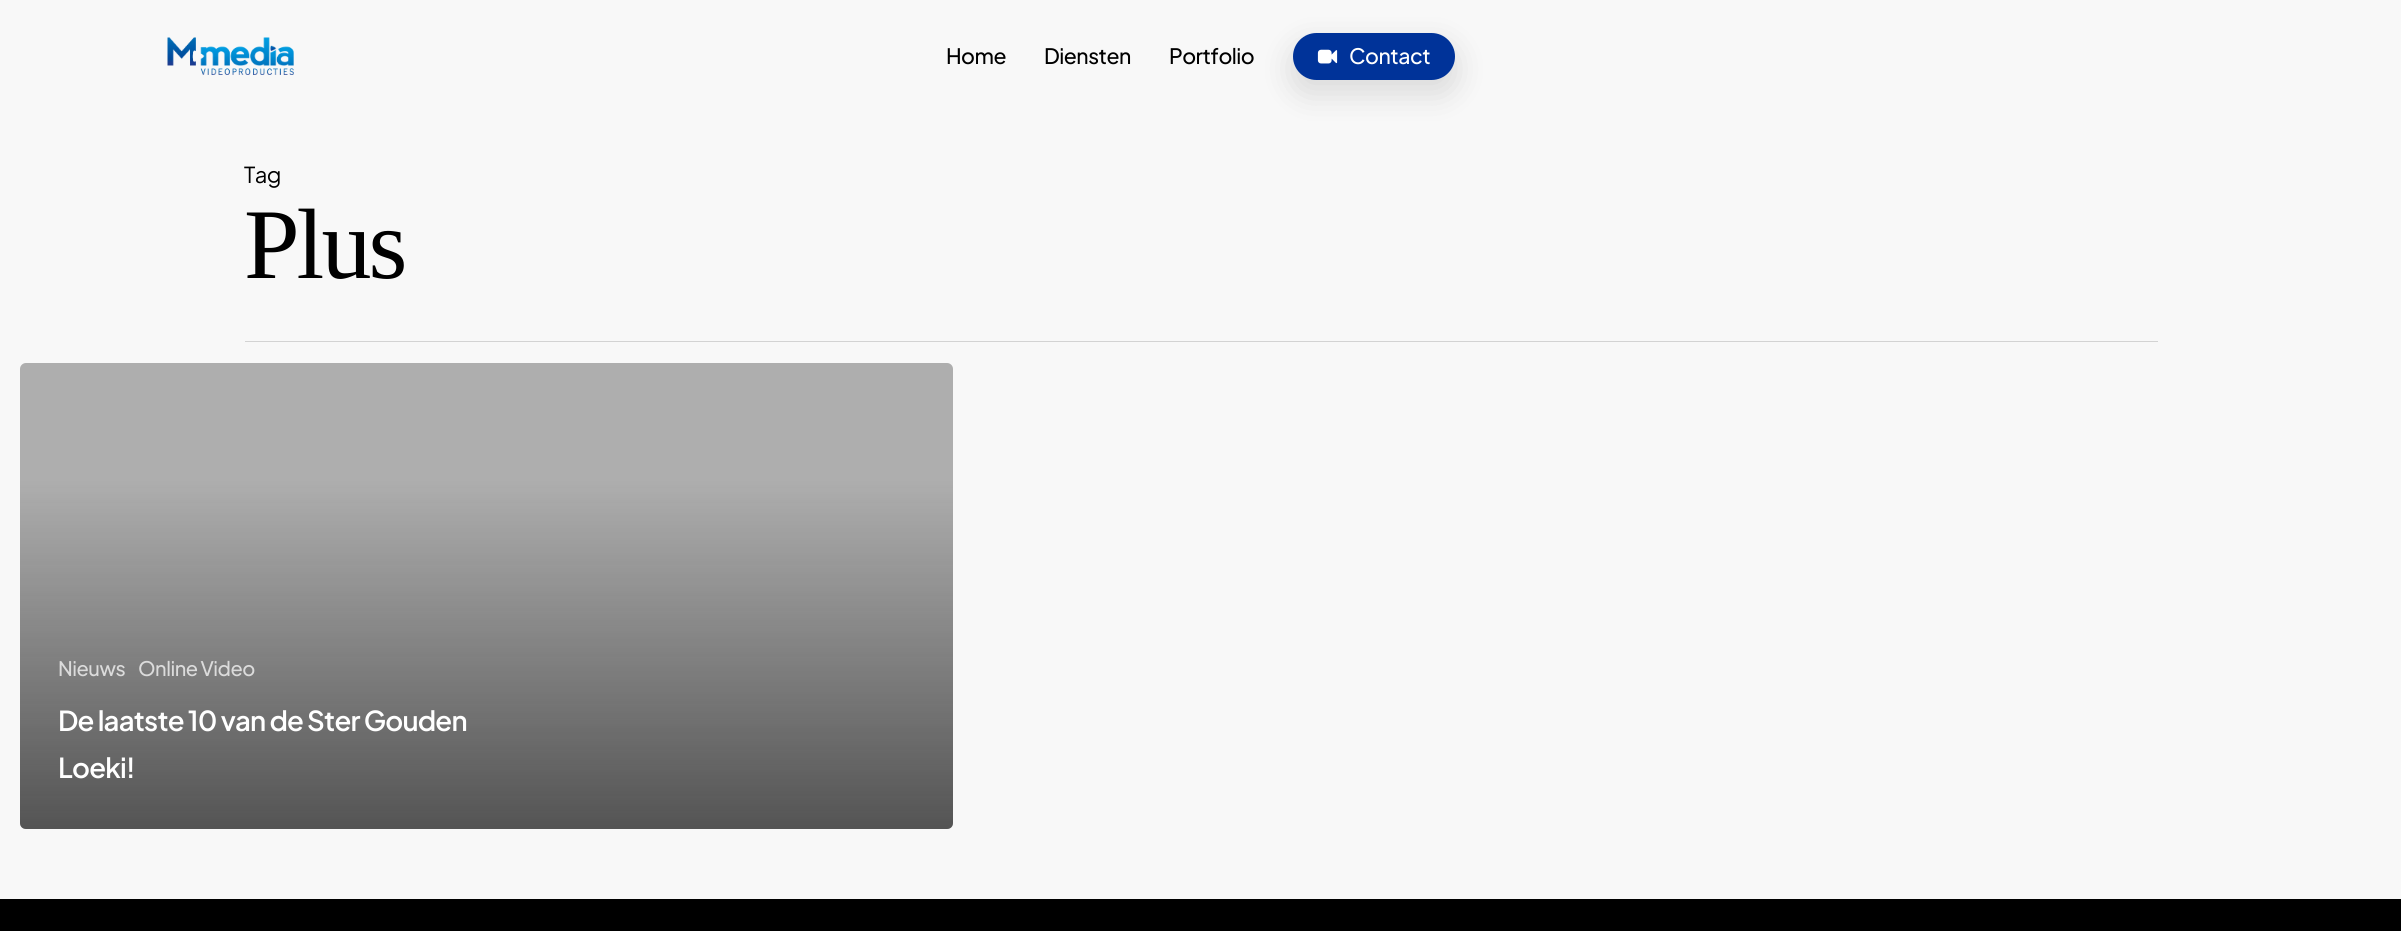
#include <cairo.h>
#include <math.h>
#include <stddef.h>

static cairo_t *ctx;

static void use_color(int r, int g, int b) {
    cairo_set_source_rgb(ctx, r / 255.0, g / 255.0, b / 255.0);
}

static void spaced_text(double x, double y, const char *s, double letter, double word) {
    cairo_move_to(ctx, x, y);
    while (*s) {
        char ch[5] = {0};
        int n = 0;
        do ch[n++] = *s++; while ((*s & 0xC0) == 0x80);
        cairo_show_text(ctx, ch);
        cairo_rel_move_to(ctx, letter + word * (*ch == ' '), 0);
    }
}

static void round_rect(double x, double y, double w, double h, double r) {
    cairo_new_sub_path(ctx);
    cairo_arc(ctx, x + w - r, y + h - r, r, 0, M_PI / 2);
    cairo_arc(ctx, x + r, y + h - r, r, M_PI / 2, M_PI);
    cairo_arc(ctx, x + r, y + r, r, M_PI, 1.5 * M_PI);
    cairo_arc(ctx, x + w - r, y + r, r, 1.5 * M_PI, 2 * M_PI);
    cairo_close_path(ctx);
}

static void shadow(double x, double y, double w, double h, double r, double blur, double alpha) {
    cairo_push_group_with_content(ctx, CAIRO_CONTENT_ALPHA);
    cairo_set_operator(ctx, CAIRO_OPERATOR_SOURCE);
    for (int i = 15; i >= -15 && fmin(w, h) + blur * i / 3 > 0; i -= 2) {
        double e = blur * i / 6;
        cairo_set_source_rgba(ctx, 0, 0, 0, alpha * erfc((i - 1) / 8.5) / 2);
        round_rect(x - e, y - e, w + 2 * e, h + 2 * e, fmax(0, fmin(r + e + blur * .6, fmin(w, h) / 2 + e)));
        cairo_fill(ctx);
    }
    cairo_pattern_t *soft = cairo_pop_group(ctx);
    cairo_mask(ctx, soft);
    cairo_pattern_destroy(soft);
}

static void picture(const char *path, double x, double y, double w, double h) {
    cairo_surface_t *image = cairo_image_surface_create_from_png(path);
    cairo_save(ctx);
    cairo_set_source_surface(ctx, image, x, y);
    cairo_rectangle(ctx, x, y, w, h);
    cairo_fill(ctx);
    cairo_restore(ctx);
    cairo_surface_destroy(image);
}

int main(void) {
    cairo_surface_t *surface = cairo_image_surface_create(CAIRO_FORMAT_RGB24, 2401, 931);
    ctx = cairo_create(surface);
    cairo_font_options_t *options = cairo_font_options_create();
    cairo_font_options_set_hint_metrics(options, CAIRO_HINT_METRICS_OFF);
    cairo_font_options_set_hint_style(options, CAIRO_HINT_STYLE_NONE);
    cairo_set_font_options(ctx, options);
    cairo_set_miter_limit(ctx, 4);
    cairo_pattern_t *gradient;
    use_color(248, 248, 248);
    cairo_paint(ctx);
    picture("img1.png", 167, 37, 127, 38);
    cairo_select_font_face(ctx, "Plus Jakarta Sans Medium", CAIRO_FONT_SLANT_NORMAL, CAIRO_FONT_WEIGHT_NORMAL);
    cairo_set_font_size(ctx, 21.25);
    use_color(0, 0, 0);
    spaced_text(946, 64, "Home", -0.5, 0);
    spaced_text(1044, 64, "Diensten", -0.5, 0);
    spaced_text(1169, 64, "Portfolio", -0.5, 0);
    use_color(0, 0, 0);
    shadow(1293, 45, 162, 48, 24, 15.5, 0.13);
    use_color(0, 51, 153);
    round_rect(1293, 33, 162, 47, 23.5);
    cairo_fill(ctx);
    picture("img2.png", 1317, 49, 21, 15);
    use_color(255, 255, 255);
    spaced_text(1349, 64, "Contact", -0.5, 0);
    use_color(211, 211, 211);
    cairo_rectangle(ctx, 245, 341, 1913, 1);
    cairo_fill(ctx);
    cairo_select_font_face(ctx, "Plus Jakarta Sans", CAIRO_FONT_SLANT_NORMAL, CAIRO_FONT_WEIGHT_NORMAL);
    cairo_set_font_size(ctx, 22);
    use_color(0, 0, 0);
    spaced_text(244, 183, "Tag", -0.5, 0);
    cairo_select_font_face(ctx, "Liberation Serif", CAIRO_FONT_SLANT_NORMAL, CAIRO_FONT_WEIGHT_NORMAL);
    cairo_set_font_size(ctx, 100);
    spaced_text(244, 278, "Plus", -3, 0);
    use_color(174, 174, 174);
    round_rect(20, 363, 933, 466, 6);
    cairo_fill(ctx);
    gradient = cairo_pattern_create_linear(489, 480, 489, 830);
    cairo_pattern_add_color_stop_rgba(gradient, 0, 0.137, 0.137, 0.137, 0);
    cairo_pattern_add_color_stop_rgba(gradient, 1, 0.137, 0.137, 0.137, 0.65);
    cairo_set_source(ctx, gradient);
    cairo_pattern_destroy(gradient);
    cairo_new_path(ctx);
    cairo_move_to(ctx, 20, 480);
    cairo_line_to(ctx, 953, 480);
    cairo_line_to(ctx, 953, 823);
    cairo_curve_to(ctx, 953, 826.5, 950.5, 829, 947, 829);
    cairo_line_to(ctx, 26, 829);
    cairo_curve_to(ctx, 22.5, 829, 20, 826.5, 20, 823);
    cairo_close_path(ctx);
    cairo_fill(ctx);
    cairo_select_font_face(ctx, "Plus Jakarta Sans Medium", CAIRO_FONT_SLANT_NORMAL, CAIRO_FONT_WEIGHT_NORMAL);
    cairo_set_font_size(ctx, 20);
    use_color(219, 219, 219);
    spaced_text(58, 676, "Nieuws", -0.5, 0);
    spaced_text(138, 676, "Online Video", -0.5, 0);
    cairo_select_font_face(ctx, "Plus Jakarta Sans SemiBold", CAIRO_FONT_SLANT_NORMAL, CAIRO_FONT_WEIGHT_NORMAL);
    cairo_set_font_size(ctx, 27.5);
    use_color(255, 255, 255);
    spaced_text(58, 731, "De laatste 10 van de Ster Gouden", -0.8, 0);
    spaced_text(58, 778, "Loeki!", -0.8, 0);
    use_color(0, 0, 0);
    cairo_rectangle(ctx, 0, 899, 2401, 32);
    cairo_fill(ctx);
    cairo_surface_write_to_png(surface, "result.png");
    cairo_font_options_destroy(options);
    cairo_destroy(ctx);
    cairo_surface_destroy(surface);
    return 0;
}
